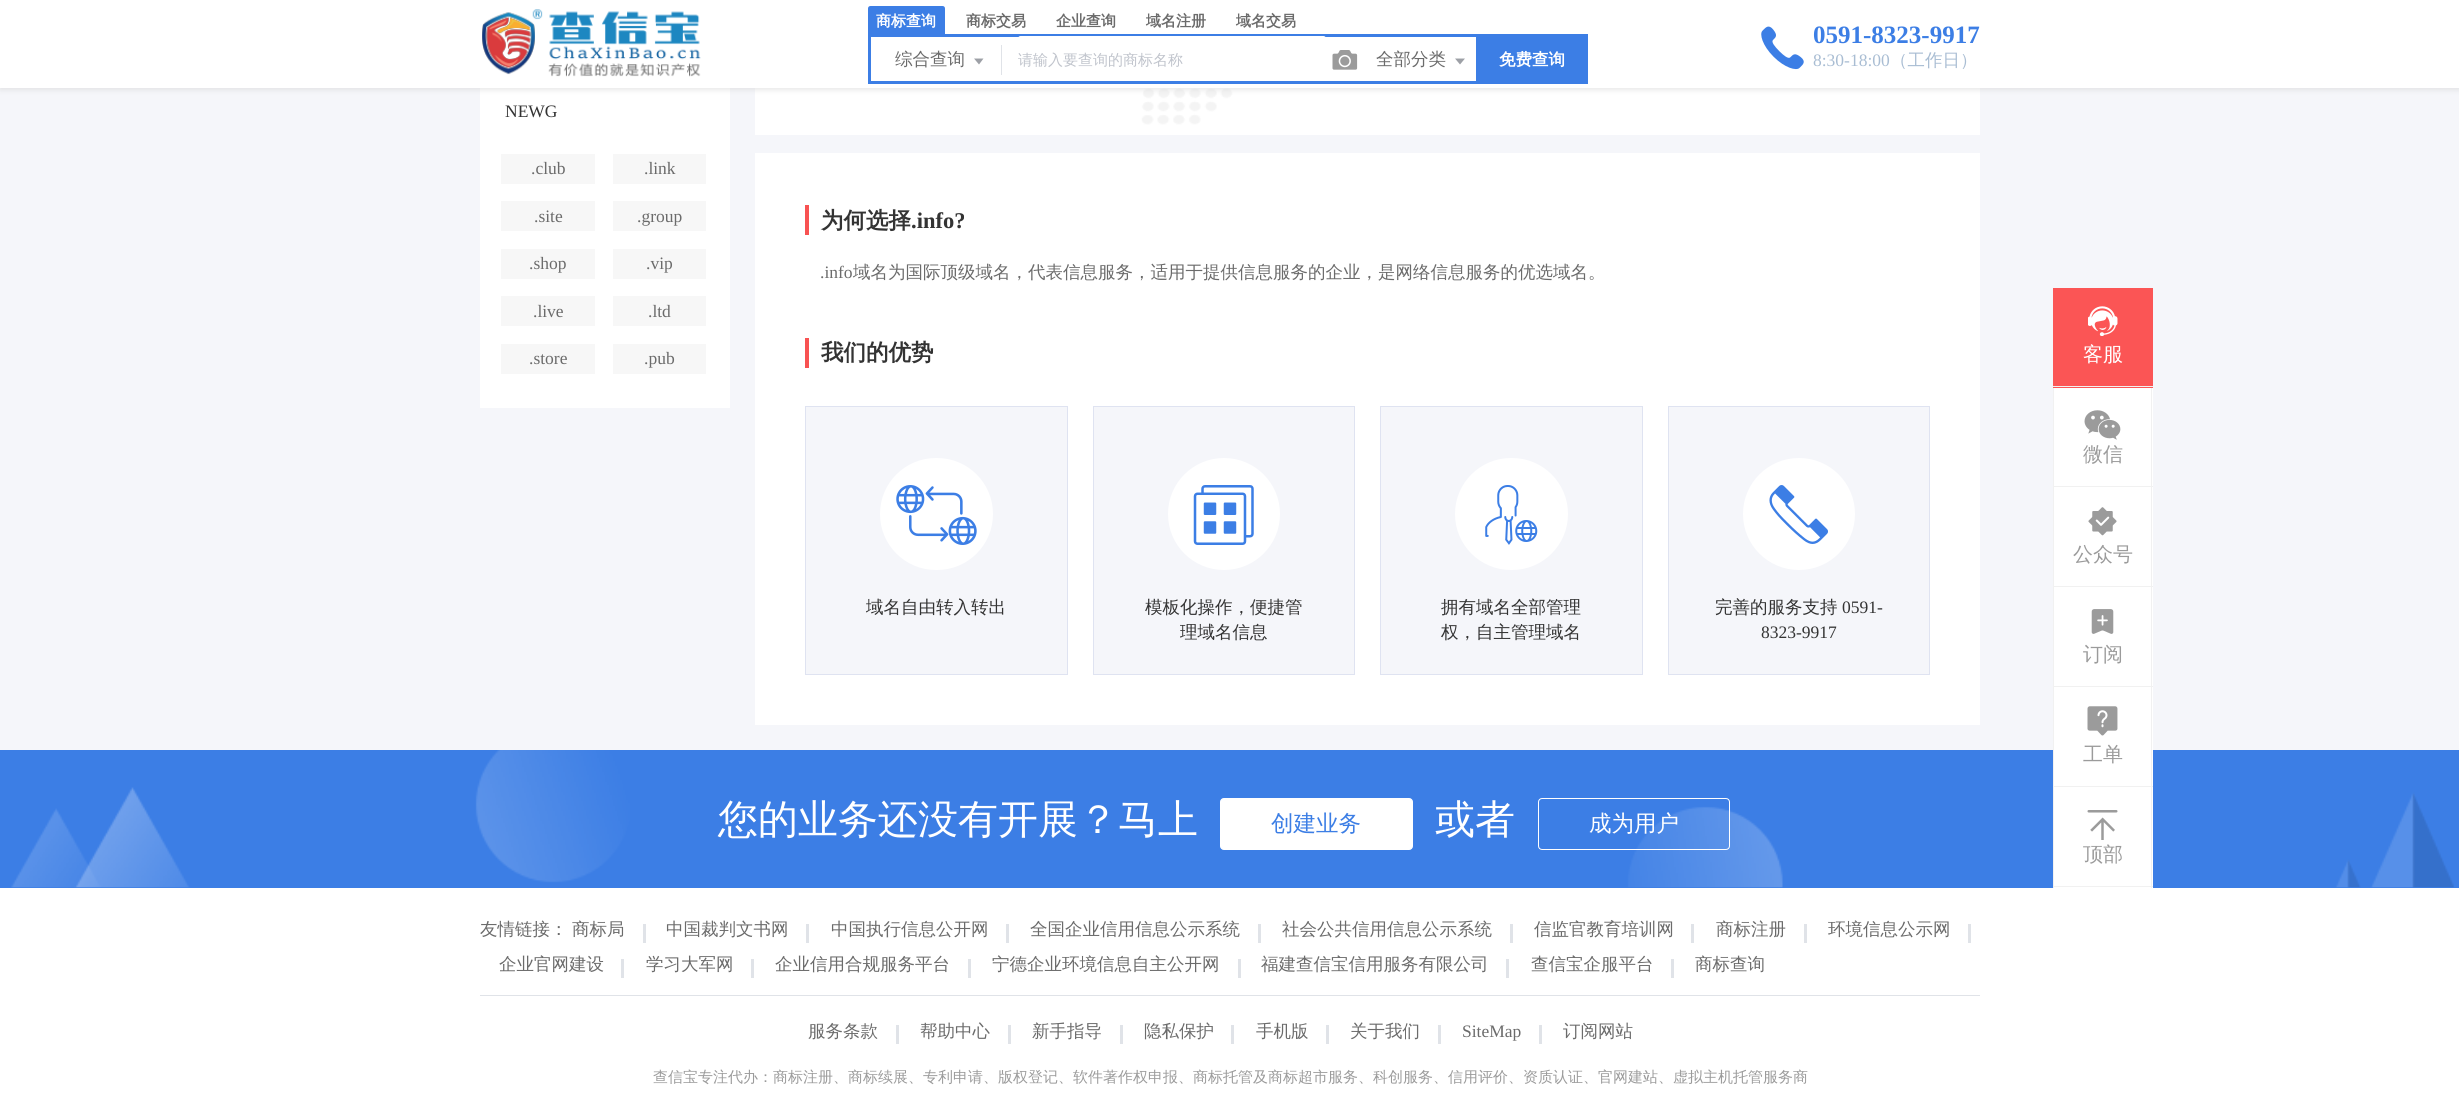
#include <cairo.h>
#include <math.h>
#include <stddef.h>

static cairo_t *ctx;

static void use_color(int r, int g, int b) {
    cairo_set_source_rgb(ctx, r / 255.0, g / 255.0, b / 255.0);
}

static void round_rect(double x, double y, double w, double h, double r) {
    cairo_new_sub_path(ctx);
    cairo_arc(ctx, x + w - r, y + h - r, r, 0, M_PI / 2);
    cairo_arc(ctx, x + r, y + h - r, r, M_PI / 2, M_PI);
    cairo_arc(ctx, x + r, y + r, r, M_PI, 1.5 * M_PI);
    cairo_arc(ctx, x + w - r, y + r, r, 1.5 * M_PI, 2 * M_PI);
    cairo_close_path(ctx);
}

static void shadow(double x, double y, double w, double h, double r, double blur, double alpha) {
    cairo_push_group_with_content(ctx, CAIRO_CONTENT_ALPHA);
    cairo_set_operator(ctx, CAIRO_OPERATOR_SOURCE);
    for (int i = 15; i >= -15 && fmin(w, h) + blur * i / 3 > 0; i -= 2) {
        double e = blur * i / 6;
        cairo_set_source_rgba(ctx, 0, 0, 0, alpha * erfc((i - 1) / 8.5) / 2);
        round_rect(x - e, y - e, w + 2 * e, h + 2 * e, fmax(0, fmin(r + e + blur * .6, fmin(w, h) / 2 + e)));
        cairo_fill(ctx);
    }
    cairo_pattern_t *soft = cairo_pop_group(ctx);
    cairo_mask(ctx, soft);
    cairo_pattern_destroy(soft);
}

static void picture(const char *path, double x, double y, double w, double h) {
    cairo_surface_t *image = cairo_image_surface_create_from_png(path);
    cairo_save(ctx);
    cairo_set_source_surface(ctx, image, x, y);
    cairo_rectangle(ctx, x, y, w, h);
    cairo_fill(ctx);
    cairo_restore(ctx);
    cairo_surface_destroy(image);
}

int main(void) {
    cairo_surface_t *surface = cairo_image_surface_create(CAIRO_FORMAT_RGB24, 2459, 1101);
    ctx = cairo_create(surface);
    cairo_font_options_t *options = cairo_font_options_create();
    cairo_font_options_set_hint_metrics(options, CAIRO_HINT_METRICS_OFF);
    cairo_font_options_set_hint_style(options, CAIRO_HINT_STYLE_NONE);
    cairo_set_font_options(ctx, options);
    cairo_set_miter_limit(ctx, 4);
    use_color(245, 246, 250);
    cairo_paint(ctx);
    use_color(255, 255, 255);
    cairo_rectangle(ctx, 480, 88, 250, 320);
    cairo_fill(ctx);
    cairo_rectangle(ctx, 755, 88, 1225, 47);
    cairo_fill(ctx);
    picture("img4.png", 1141, 88, 92, 37);
    use_color(208, 208, 208);
    shadow(0, 3, 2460, 87, 0, 2.5, 0.5);
    use_color(255, 255, 255);
    cairo_rectangle(ctx, 0, 0, 2459, 88);
    cairo_fill(ctx);
    picture("img1.png", 482, 9, 219, 68);
    use_color(60, 126, 229);
    cairo_new_path(ctx);
    cairo_move_to(ctx, 870.5, 6);
    cairo_line_to(ctx, 942.5, 6);
    cairo_curve_to(ctx, 944, 6, 945, 7, 945, 8.5);
    cairo_line_to(ctx, 945, 34);
    cairo_line_to(ctx, 868, 34);
    cairo_line_to(ctx, 868, 8.5);
    cairo_curve_to(ctx, 868, 7, 869, 6, 870.5, 6);
    cairo_close_path(ctx);
    cairo_fill(ctx);
    cairo_select_font_face(ctx, "WenQuanYi Zen Hei", CAIRO_FONT_SLANT_NORMAL, CAIRO_FONT_WEIGHT_BOLD);
    cairo_set_font_size(ctx, 15);
    use_color(255, 255, 255);
    cairo_move_to(ctx, 876, 26);
    cairo_show_text(ctx, "商标查询");
    use_color(107, 107, 107);
    cairo_move_to(ctx, 966, 26);
    cairo_show_text(ctx, "商标交易");
    cairo_move_to(ctx, 1056, 26);
    cairo_show_text(ctx, "企业查询");
    cairo_move_to(ctx, 1146, 26);
    cairo_show_text(ctx, "域名注册");
    cairo_move_to(ctx, 1236, 26);
    cairo_show_text(ctx, "域名交易");
    use_color(60, 126, 229);
    cairo_rectangle(ctx, 868, 34, 720, 3);
    cairo_fill(ctx);
    cairo_rectangle(ctx, 868, 81, 608, 3);
    cairo_fill(ctx);
    cairo_rectangle(ctx, 868, 34, 3, 50);
    cairo_fill(ctx);
    use_color(224, 227, 232);
    cairo_rectangle(ctx, 1001, 45, 1, 30);
    cairo_fill(ctx);
    cairo_select_font_face(ctx, "WenQuanYi Zen Hei Medium", CAIRO_FONT_SLANT_NORMAL, CAIRO_FONT_WEIGHT_NORMAL);
    cairo_set_font_size(ctx, 17.5);
    use_color(107, 107, 107);
    cairo_move_to(ctx, 895, 65);
    cairo_show_text(ctx, "综合查询");
    use_color(157, 160, 166);
    cairo_new_path(ctx);
    cairo_move_to(ctx, 974, 58.5);
    cairo_line_to(ctx, 983.5, 58.5);
    cairo_line_to(ctx, 979, 64.5);
    cairo_close_path(ctx);
    cairo_fill(ctx);
    use_color(255, 255, 255);
    round_rect(1018, 36, 308, 45, 2.5);
    cairo_fill(ctx);
    cairo_set_font_size(ctx, 15);
    use_color(192, 196, 204);
    cairo_move_to(ctx, 1018, 65);
    cairo_show_text(ctx, "请输入要查询的商标名称");
    picture("img2.png", 1332, 50, 26, 20);
    cairo_set_font_size(ctx, 17.5);
    use_color(107, 107, 107);
    cairo_move_to(ctx, 1376, 65);
    cairo_show_text(ctx, "全部分类");
    use_color(157, 160, 166);
    cairo_new_path(ctx);
    cairo_move_to(ctx, 1455, 58.5);
    cairo_line_to(ctx, 1465, 58.5);
    cairo_line_to(ctx, 1460, 64.5);
    cairo_close_path(ctx);
    cairo_fill(ctx);
    use_color(60, 126, 229);
    cairo_rectangle(ctx, 1476, 37, 112, 47);
    cairo_fill(ctx);
    cairo_select_font_face(ctx, "WenQuanYi Zen Hei", CAIRO_FONT_SLANT_NORMAL, CAIRO_FONT_WEIGHT_BOLD);
    cairo_set_font_size(ctx, 16.5);
    use_color(255, 255, 255);
    cairo_move_to(ctx, 1499, 65);
    cairo_show_text(ctx, "免费查询");
    picture("img3.png", 1761, 26, 43, 44);
    cairo_select_font_face(ctx, "Liberation Serif", CAIRO_FONT_SLANT_NORMAL, CAIRO_FONT_WEIGHT_BOLD);
    cairo_set_font_size(ctx, 25);
    use_color(60, 126, 229);
    cairo_move_to(ctx, 1813, 43);
    cairo_show_text(ctx, "0591-8323-9917");
    cairo_select_font_face(ctx, "Liberation Serif", CAIRO_FONT_SLANT_NORMAL, CAIRO_FONT_WEIGHT_NORMAL);
    cairo_set_font_size(ctx, 17.5);
    use_color(169, 189, 211);
    cairo_move_to(ctx, 1813, 66);
    cairo_show_text(ctx, "8:30-18:00");
    cairo_select_font_face(ctx, "WenQuanYi Zen Hei Medium", CAIRO_FONT_SLANT_NORMAL, CAIRO_FONT_WEIGHT_NORMAL);
    cairo_move_to(ctx, 1890, 66);
    cairo_show_text(ctx, "（工作日）");
    cairo_select_font_face(ctx, "Liberation Serif", CAIRO_FONT_SLANT_NORMAL, CAIRO_FONT_WEIGHT_NORMAL);
    use_color(51, 51, 51);
    cairo_move_to(ctx, 505, 117);
    cairo_show_text(ctx, "NEWG");
    use_color(247, 247, 247);
    cairo_rectangle(ctx, 501, 154, 94, 30);
    cairo_fill(ctx);
    use_color(107, 107, 107);
    cairo_move_to(ctx, 531, 174);
    cairo_show_text(ctx, ".club");
    use_color(247, 247, 247);
    cairo_rectangle(ctx, 613, 154, 93, 30);
    cairo_fill(ctx);
    use_color(107, 107, 107);
    cairo_move_to(ctx, 644, 174);
    cairo_show_text(ctx, ".link");
    use_color(247, 247, 247);
    cairo_rectangle(ctx, 501, 201, 94, 30);
    cairo_fill(ctx);
    use_color(107, 107, 107);
    cairo_move_to(ctx, 534, 222);
    cairo_show_text(ctx, ".site");
    use_color(247, 247, 247);
    cairo_rectangle(ctx, 613, 201, 93, 30);
    cairo_fill(ctx);
    use_color(107, 107, 107);
    cairo_move_to(ctx, 637, 222);
    cairo_show_text(ctx, ".group");
    use_color(247, 247, 247);
    cairo_rectangle(ctx, 501, 249, 94, 30);
    cairo_fill(ctx);
    use_color(107, 107, 107);
    cairo_move_to(ctx, 529, 269);
    cairo_show_text(ctx, ".shop");
    use_color(247, 247, 247);
    cairo_rectangle(ctx, 613, 249, 93, 30);
    cairo_fill(ctx);
    use_color(107, 107, 107);
    cairo_move_to(ctx, 646, 269);
    cairo_show_text(ctx, ".vip");
    use_color(247, 247, 247);
    cairo_rectangle(ctx, 501, 296, 94, 30);
    cairo_fill(ctx);
    use_color(107, 107, 107);
    cairo_move_to(ctx, 533, 317);
    cairo_show_text(ctx, ".live");
    use_color(247, 247, 247);
    cairo_rectangle(ctx, 613, 296, 93, 30);
    cairo_fill(ctx);
    use_color(107, 107, 107);
    cairo_move_to(ctx, 648, 317);
    cairo_show_text(ctx, ".ltd");
    use_color(247, 247, 247);
    cairo_rectangle(ctx, 501, 344, 94, 30);
    cairo_fill(ctx);
    use_color(107, 107, 107);
    cairo_move_to(ctx, 529, 364);
    cairo_show_text(ctx, ".store");
    use_color(247, 247, 247);
    cairo_rectangle(ctx, 613, 344, 93, 30);
    cairo_fill(ctx);
    use_color(107, 107, 107);
    cairo_move_to(ctx, 644, 364);
    cairo_show_text(ctx, ".pub");
    use_color(255, 255, 255);
    cairo_rectangle(ctx, 755, 153, 1225, 572);
    cairo_fill(ctx);
    use_color(248, 82, 82);
    cairo_rectangle(ctx, 805, 205, 4, 30);
    cairo_fill(ctx);
    cairo_select_font_face(ctx, "WenQuanYi Zen Hei", CAIRO_FONT_SLANT_NORMAL, CAIRO_FONT_WEIGHT_BOLD);
    cairo_set_font_size(ctx, 22.5);
    use_color(51, 51, 51);
    cairo_move_to(ctx, 821, 228);
    cairo_show_text(ctx, "为何选择");
    cairo_select_font_face(ctx, "Liberation Serif", CAIRO_FONT_SLANT_NORMAL, CAIRO_FONT_WEIGHT_BOLD);
    cairo_move_to(ctx, 911, 228);
    cairo_show_text(ctx, ".info?");
    cairo_select_font_face(ctx, "Liberation Serif", CAIRO_FONT_SLANT_NORMAL, CAIRO_FONT_WEIGHT_NORMAL);
    cairo_set_font_size(ctx, 17.5);
    use_color(107, 107, 107);
    cairo_move_to(ctx, 820, 278);
    cairo_show_text(ctx, ".info");
    cairo_select_font_face(ctx, "WenQuanYi Zen Hei Medium", CAIRO_FONT_SLANT_NORMAL, CAIRO_FONT_WEIGHT_NORMAL);
    cairo_move_to(ctx, 853, 278);
    cairo_show_text(ctx, "域名为国际顶级域名，代表信息服务，适用于提供信息服务的企业，是网络信息服务的优选域名。");
    use_color(248, 82, 82);
    cairo_rectangle(ctx, 805, 338, 4, 30);
    cairo_fill(ctx);
    cairo_select_font_face(ctx, "WenQuanYi Zen Hei", CAIRO_FONT_SLANT_NORMAL, CAIRO_FONT_WEIGHT_BOLD);
    cairo_set_font_size(ctx, 22.5);
    use_color(51, 51, 51);
    cairo_move_to(ctx, 821, 360);
    cairo_show_text(ctx, "我们的优势");
    use_color(245, 246, 250);
    cairo_rectangle(ctx, 805.5, 406.5, 262, 268);
    cairo_fill_preserve(ctx);
    use_color(223, 227, 241);
    cairo_set_line_width(ctx, 1);
    cairo_stroke(ctx);
    use_color(255, 255, 255);
    round_rect(880, 458, 113, 112, 56);
    cairo_fill(ctx);
    picture("img5.png", 896, 485, 81, 60);
    cairo_select_font_face(ctx, "WenQuanYi Zen Hei Medium", CAIRO_FONT_SLANT_NORMAL, CAIRO_FONT_WEIGHT_NORMAL);
    cairo_set_font_size(ctx, 17.5);
    use_color(51, 51, 51);
    cairo_move_to(ctx, 866, 613);
    cairo_show_text(ctx, "域名自由转入转出");
    use_color(245, 246, 250);
    cairo_rectangle(ctx, 1093.5, 406.5, 261, 268);
    cairo_fill_preserve(ctx);
    use_color(223, 227, 241);
    cairo_stroke(ctx);
    use_color(255, 255, 255);
    cairo_arc(ctx, 1224, 514, 56, 0, 2 * M_PI);
    cairo_fill(ctx);
    picture("img6.png", 1193, 485, 61, 60);
    use_color(51, 51, 51);
    cairo_move_to(ctx, 1145, 613);
    cairo_show_text(ctx, "模板化操作，便捷管");
    cairo_move_to(ctx, 1180, 638);
    cairo_show_text(ctx, "理域名信息");
    use_color(245, 246, 250);
    cairo_rectangle(ctx, 1380.5, 406.5, 262, 268);
    cairo_fill_preserve(ctx);
    use_color(223, 227, 241);
    cairo_stroke(ctx);
    use_color(255, 255, 255);
    round_rect(1455, 458, 113, 112, 56);
    cairo_fill(ctx);
    picture("img7.png", 1485, 485, 53, 60);
    use_color(51, 51, 51);
    cairo_move_to(ctx, 1441, 613);
    cairo_show_text(ctx, "拥有域名全部管理");
    cairo_move_to(ctx, 1441, 638);
    cairo_show_text(ctx, "权，自主管理域名");
    use_color(245, 246, 250);
    cairo_rectangle(ctx, 1668.5, 406.5, 261, 268);
    cairo_fill_preserve(ctx);
    use_color(223, 227, 241);
    cairo_stroke(ctx);
    use_color(255, 255, 255);
    cairo_arc(ctx, 1799, 514, 56, 0, 2 * M_PI);
    cairo_fill(ctx);
    picture("img8.png", 1769, 485, 59, 59);
    use_color(51, 51, 51);
    cairo_move_to(ctx, 1715, 613);
    cairo_show_text(ctx, "完善的服务支持");
    cairo_select_font_face(ctx, "Liberation Serif", CAIRO_FONT_SLANT_NORMAL, CAIRO_FONT_WEIGHT_NORMAL);
    cairo_move_to(ctx, 1842, 613);
    cairo_show_text(ctx, "0591-");
    cairo_move_to(ctx, 1761, 638);
    cairo_show_text(ctx, "8323-9917");
    use_color(251, 85, 85);
    cairo_rectangle(ctx, 2053, 288, 100, 100);
    cairo_fill(ctx);
    use_color(241, 241, 241);
    cairo_rectangle(ctx, 2053, 386, 100, 1);
    cairo_fill(ctx);
    picture("img9.png", 2088, 306, 30, 30);
    cairo_select_font_face(ctx, "WenQuanYi Zen Hei Medium", CAIRO_FONT_SLANT_NORMAL, CAIRO_FONT_WEIGHT_NORMAL);
    cairo_set_font_size(ctx, 20);
    use_color(255, 255, 255);
    cairo_move_to(ctx, 2083, 361);
    cairo_show_text(ctx, "客服");
    use_color(60, 126, 229);
    cairo_rectangle(ctx, 0, 750, 2459, 138);
    cairo_fill(ctx);
    picture("img15.png", 11, 750, 2443, 138);
    use_color(255, 255, 255);
    cairo_rectangle(ctx, 2054, 388, 99, 500);
    cairo_fill(ctx);
    use_color(241, 241, 241);
    cairo_rectangle(ctx, 2151, 388, 1, 500);
    cairo_fill(ctx);
    cairo_rectangle(ctx, 2053, 486, 100, 1);
    cairo_fill(ctx);
    cairo_rectangle(ctx, 2053, 388, 1, 100);
    cairo_fill(ctx);
    picture("img10.png", 2084, 410, 37, 30);
    use_color(155, 155, 155);
    cairo_move_to(ctx, 2083, 461);
    cairo_show_text(ctx, "微信");
    use_color(241, 241, 241);
    cairo_rectangle(ctx, 2053, 586, 100, 1);
    cairo_fill(ctx);
    cairo_rectangle(ctx, 2053, 488, 1, 100);
    cairo_fill(ctx);
    picture("img11.png", 2088, 507, 29, 29);
    use_color(155, 155, 155);
    cairo_move_to(ctx, 2073, 561);
    cairo_show_text(ctx, "公众号");
    use_color(241, 241, 241);
    cairo_rectangle(ctx, 2053, 686, 100, 1);
    cairo_fill(ctx);
    cairo_rectangle(ctx, 2053, 588, 1, 100);
    cairo_fill(ctx);
    picture("img12.png", 2091, 609, 23, 25);
    use_color(155, 155, 155);
    cairo_move_to(ctx, 2083, 661);
    cairo_show_text(ctx, "订阅");
    use_color(241, 241, 241);
    cairo_rectangle(ctx, 2053, 786, 100, 1);
    cairo_fill(ctx);
    cairo_rectangle(ctx, 2053, 688, 1, 100);
    cairo_fill(ctx);
    picture("img13.png", 2087, 706, 31, 30);
    use_color(155, 155, 155);
    cairo_move_to(ctx, 2083, 761);
    cairo_show_text(ctx, "工单");
    use_color(241, 241, 241);
    cairo_rectangle(ctx, 2053, 886, 100, 1);
    cairo_fill(ctx);
    cairo_rectangle(ctx, 2053, 788, 1, 100);
    cairo_fill(ctx);
    picture("img14.png", 2087, 810, 31, 30);
    use_color(155, 155, 155);
    cairo_move_to(ctx, 2083, 861);
    cairo_show_text(ctx, "顶部");
    use_color(255, 255, 255);
    cairo_rectangle(ctx, 0, 888, 2459, 213);
    cairo_fill(ctx);
    cairo_set_font_size(ctx, 40);
    cairo_move_to(ctx, 718, 833);
    cairo_show_text(ctx, "您的业务还没有开展？马上");
    round_rect(1220.5, 798.5, 192, 51, 3.5);
    cairo_fill_preserve(ctx);
    cairo_stroke(ctx);
    cairo_set_font_size(ctx, 22.5);
    use_color(60, 126, 229);
    cairo_move_to(ctx, 1271, 831);
    cairo_show_text(ctx, "创建业务");
    cairo_set_font_size(ctx, 40);
    use_color(255, 255, 255);
    cairo_move_to(ctx, 1435, 833);
    cairo_show_text(ctx, "或者");
    round_rect(1538.5, 798.5, 191, 51, 3.5);
    cairo_stroke(ctx);
    cairo_set_font_size(ctx, 22.5);
    cairo_move_to(ctx, 1589, 831);
    cairo_show_text(ctx, "成为用户");
    use_color(224, 227, 232);
    cairo_rectangle(ctx, 480, 995, 1500, 1);
    cairo_fill(ctx);
    cairo_set_font_size(ctx, 17.5);
    use_color(107, 107, 107);
    cairo_move_to(ctx, 480, 935);
    cairo_show_text(ctx, "友情链接：");
    cairo_move_to(ctx, 572, 935);
    cairo_show_text(ctx, "商标局");
    use_color(224, 227, 232);
    cairo_rectangle(ctx, 643, 924, 3, 19);
    cairo_fill(ctx);
    use_color(107, 107, 107);
    cairo_move_to(ctx, 666, 935);
    cairo_show_text(ctx, "中国裁判文书网");
    use_color(224, 227, 232);
    cairo_rectangle(ctx, 806, 924, 3, 19);
    cairo_fill(ctx);
    use_color(107, 107, 107);
    cairo_move_to(ctx, 831, 935);
    cairo_show_text(ctx, "中国执行信息公开网");
    use_color(224, 227, 232);
    cairo_rectangle(ctx, 1006, 924, 3, 19);
    cairo_fill(ctx);
    use_color(107, 107, 107);
    cairo_move_to(ctx, 1030, 935);
    cairo_show_text(ctx, "全国企业信用信息公示系统");
    use_color(224, 227, 232);
    cairo_rectangle(ctx, 1258, 924, 3, 19);
    cairo_fill(ctx);
    use_color(107, 107, 107);
    cairo_move_to(ctx, 1282, 935);
    cairo_show_text(ctx, "社会公共信用信息公示系统");
    use_color(224, 227, 232);
    cairo_rectangle(ctx, 1510, 924, 3, 19);
    cairo_fill(ctx);
    use_color(107, 107, 107);
    cairo_move_to(ctx, 1534, 935);
    cairo_show_text(ctx, "信监官教育培训网");
    use_color(224, 227, 232);
    cairo_rectangle(ctx, 1691, 924, 3, 19);
    cairo_fill(ctx);
    use_color(107, 107, 107);
    cairo_move_to(ctx, 1716, 935);
    cairo_show_text(ctx, "商标注册");
    use_color(224, 227, 232);
    cairo_rectangle(ctx, 1804, 924, 3, 19);
    cairo_fill(ctx);
    use_color(107, 107, 107);
    cairo_move_to(ctx, 1828, 935);
    cairo_show_text(ctx, "环境信息公示网");
    use_color(224, 227, 232);
    cairo_rectangle(ctx, 1968, 924, 3, 19);
    cairo_fill(ctx);
    use_color(107, 107, 107);
    cairo_move_to(ctx, 499, 970);
    cairo_show_text(ctx, "企业官网建设");
    use_color(224, 227, 232);
    cairo_rectangle(ctx, 621, 959, 3, 19);
    cairo_fill(ctx);
    use_color(107, 107, 107);
    cairo_move_to(ctx, 646, 970);
    cairo_show_text(ctx, "学习大军网");
    use_color(224, 227, 232);
    cairo_rectangle(ctx, 751, 959, 3, 19);
    cairo_fill(ctx);
    use_color(107, 107, 107);
    cairo_move_to(ctx, 775, 970);
    cairo_show_text(ctx, "企业信用合规服务平台");
    use_color(224, 227, 232);
    cairo_rectangle(ctx, 968, 959, 3, 19);
    cairo_fill(ctx);
    use_color(107, 107, 107);
    cairo_move_to(ctx, 992, 970);
    cairo_show_text(ctx, "宁德企业环境信息自主公开网");
    use_color(224, 227, 232);
    cairo_rectangle(ctx, 1238, 959, 3, 19);
    cairo_fill(ctx);
    use_color(107, 107, 107);
    cairo_move_to(ctx, 1261, 970);
    cairo_show_text(ctx, "福建查信宝信用服务有限公司");
    use_color(224, 227, 232);
    cairo_rectangle(ctx, 1506, 959, 3, 19);
    cairo_fill(ctx);
    use_color(107, 107, 107);
    cairo_move_to(ctx, 1531, 970);
    cairo_show_text(ctx, "查信宝企服平台");
    use_color(224, 227, 232);
    cairo_rectangle(ctx, 1671, 959, 3, 19);
    cairo_fill(ctx);
    use_color(107, 107, 107);
    cairo_move_to(ctx, 1695, 970);
    cairo_show_text(ctx, "商标查询");
    cairo_move_to(ctx, 808, 1037);
    cairo_show_text(ctx, "服务条款");
    use_color(224, 227, 232);
    cairo_rectangle(ctx, 896, 1025, 3, 19);
    cairo_fill(ctx);
    use_color(107, 107, 107);
    cairo_move_to(ctx, 920, 1037);
    cairo_show_text(ctx, "帮助中心");
    use_color(224, 227, 232);
    cairo_rectangle(ctx, 1008, 1025, 3, 19);
    cairo_fill(ctx);
    use_color(107, 107, 107);
    cairo_move_to(ctx, 1032, 1037);
    cairo_show_text(ctx, "新手指导");
    use_color(224, 227, 232);
    cairo_rectangle(ctx, 1120, 1025, 3, 19);
    cairo_fill(ctx);
    use_color(107, 107, 107);
    cairo_move_to(ctx, 1144, 1037);
    cairo_show_text(ctx, "隐私保护");
    use_color(224, 227, 232);
    cairo_rectangle(ctx, 1231, 1025, 3, 19);
    cairo_fill(ctx);
    use_color(107, 107, 107);
    cairo_move_to(ctx, 1256, 1037);
    cairo_show_text(ctx, "手机版");
    use_color(224, 227, 232);
    cairo_rectangle(ctx, 1326, 1025, 3, 19);
    cairo_fill(ctx);
    use_color(107, 107, 107);
    cairo_move_to(ctx, 1350, 1037);
    cairo_show_text(ctx, "关于我们");
    use_color(224, 227, 232);
    cairo_rectangle(ctx, 1438, 1025, 3, 19);
    cairo_fill(ctx);
    cairo_select_font_face(ctx, "Liberation Serif", CAIRO_FONT_SLANT_NORMAL, CAIRO_FONT_WEIGHT_NORMAL);
    use_color(107, 107, 107);
    cairo_move_to(ctx, 1462, 1037);
    cairo_show_text(ctx, "SiteMap");
    use_color(224, 227, 232);
    cairo_rectangle(ctx, 1539, 1025, 3, 19);
    cairo_fill(ctx);
    cairo_select_font_face(ctx, "WenQuanYi Zen Hei Medium", CAIRO_FONT_SLANT_NORMAL, CAIRO_FONT_WEIGHT_NORMAL);
    use_color(107, 107, 107);
    cairo_move_to(ctx, 1563, 1037);
    cairo_show_text(ctx, "订阅网站");
    cairo_set_font_size(ctx, 15);
    use_color(155, 155, 155);
    cairo_move_to(ctx, 653, 1082);
    cairo_show_text(ctx, "查信宝专注代办：商标注册、商标续展、专利申请、版权登记、软件著作权申报、商标托管及商标超市服务、科创服务、信用评价、资质认证、官网建站、虚拟主机托管服务商");
    cairo_surface_write_to_png(surface, "result.png");
    cairo_font_options_destroy(options);
    cairo_destroy(ctx);
    cairo_surface_destroy(surface);
    return 0;
}
